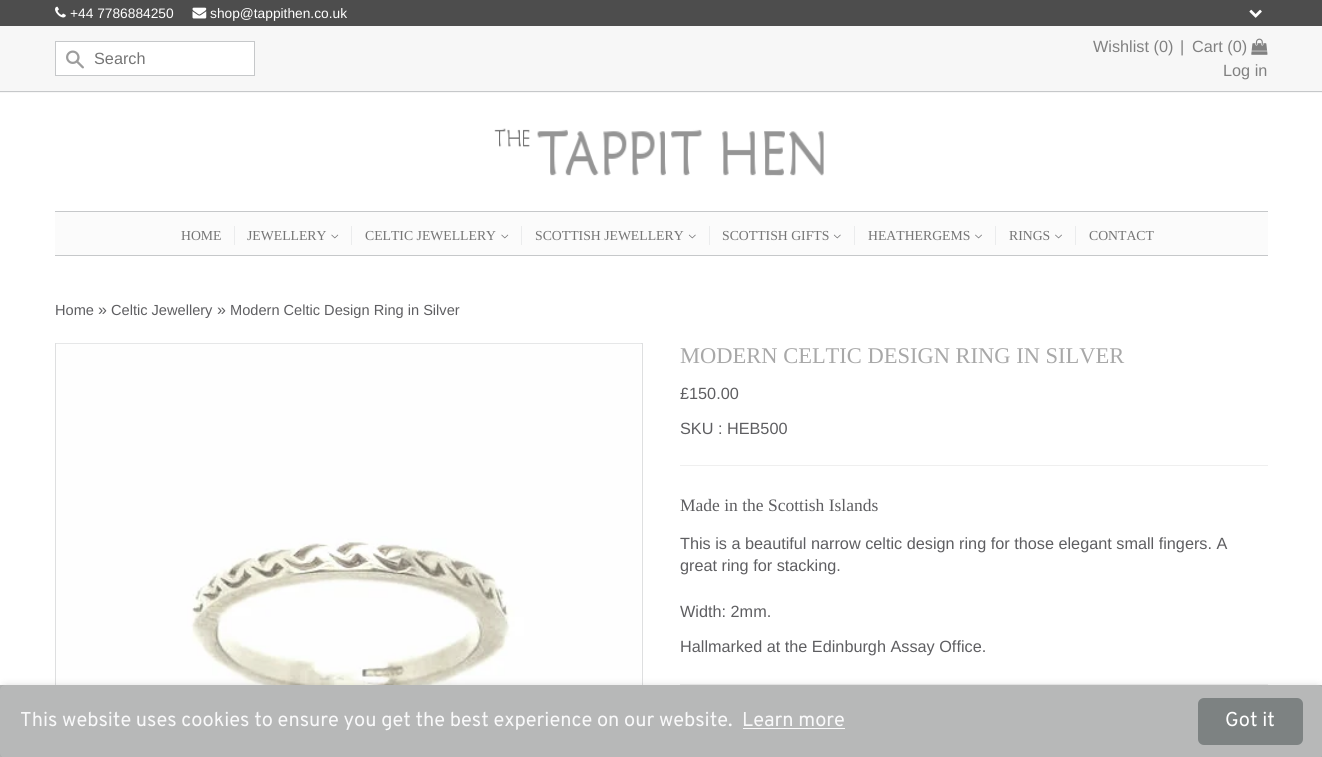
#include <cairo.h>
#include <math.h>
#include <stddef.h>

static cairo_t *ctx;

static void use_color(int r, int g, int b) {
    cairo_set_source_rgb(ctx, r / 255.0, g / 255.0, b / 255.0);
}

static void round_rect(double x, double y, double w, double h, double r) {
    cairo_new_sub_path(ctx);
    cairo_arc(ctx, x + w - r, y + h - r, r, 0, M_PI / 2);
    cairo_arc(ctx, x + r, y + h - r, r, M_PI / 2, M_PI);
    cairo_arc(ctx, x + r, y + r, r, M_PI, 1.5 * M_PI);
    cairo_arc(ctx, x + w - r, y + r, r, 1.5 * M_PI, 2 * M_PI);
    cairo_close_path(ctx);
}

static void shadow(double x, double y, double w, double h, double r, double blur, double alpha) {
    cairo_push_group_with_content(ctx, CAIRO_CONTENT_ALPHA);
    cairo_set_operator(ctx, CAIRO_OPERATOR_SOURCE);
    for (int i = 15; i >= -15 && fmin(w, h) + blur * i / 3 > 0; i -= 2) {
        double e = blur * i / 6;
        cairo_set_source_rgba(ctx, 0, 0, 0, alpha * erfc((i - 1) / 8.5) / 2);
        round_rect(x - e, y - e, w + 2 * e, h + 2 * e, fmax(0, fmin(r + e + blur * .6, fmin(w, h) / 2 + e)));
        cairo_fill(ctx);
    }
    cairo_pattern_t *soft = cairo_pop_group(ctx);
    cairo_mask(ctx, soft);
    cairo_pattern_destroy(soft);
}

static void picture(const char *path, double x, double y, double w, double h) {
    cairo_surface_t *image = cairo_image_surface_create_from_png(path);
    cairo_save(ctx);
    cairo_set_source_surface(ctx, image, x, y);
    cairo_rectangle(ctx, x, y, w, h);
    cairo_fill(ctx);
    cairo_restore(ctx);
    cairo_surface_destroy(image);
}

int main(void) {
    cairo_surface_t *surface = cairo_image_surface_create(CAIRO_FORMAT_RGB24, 1322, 757);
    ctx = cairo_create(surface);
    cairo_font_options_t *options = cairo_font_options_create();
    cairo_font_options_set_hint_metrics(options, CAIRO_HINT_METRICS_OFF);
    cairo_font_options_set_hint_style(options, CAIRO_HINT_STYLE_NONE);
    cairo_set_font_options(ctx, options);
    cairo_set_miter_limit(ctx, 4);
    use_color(255, 255, 255);
    cairo_paint(ctx);
    use_color(77, 77, 77);
    cairo_rectangle(ctx, 0, 0, 1322, 26);
    cairo_fill(ctx);
    picture("img1.png", 55, 6, 11, 12);
    cairo_select_font_face(ctx, "Liberation Sans", CAIRO_FONT_SLANT_NORMAL, CAIRO_FONT_WEIGHT_NORMAL);
    cairo_set_font_size(ctx, 13.75);
    use_color(255, 255, 255);
    cairo_move_to(ctx, 70, 18);
    cairo_show_text(ctx, "+44 7786884250");
    picture("img2.png", 192, 7, 15, 12);
    cairo_move_to(ctx, 210, 18);
    cairo_show_text(ctx, "shop@tappithen.co.uk");
    picture("img3.png", 1249, 9, 13, 9);
    use_color(247, 247, 247);
    cairo_rectangle(ctx, 0, 26, 1322, 67);
    cairo_fill(ctx);
    use_color(198, 200, 202);
    cairo_rectangle(ctx, 0, 91, 1322, 1);
    cairo_fill(ctx);
    use_color(255, 255, 255);
    cairo_rectangle(ctx, 55.5, 41.5, 199, 34);
    cairo_fill_preserve(ctx);
    use_color(198, 200, 202);
    cairo_set_line_width(ctx, 1);
    cairo_stroke(ctx);
    picture("img4.png", 66, 50, 18, 19);
    cairo_set_font_size(ctx, 16.25);
    use_color(117, 117, 117);
    cairo_move_to(ctx, 94, 64);
    cairo_show_text(ctx, "Search");
    use_color(129, 129, 129);
    cairo_move_to(ctx, 1093, 52);
    cairo_show_text(ctx, "Wishlist (0)");
    cairo_move_to(ctx, 1180, 52);
    cairo_show_text(ctx, "|");
    cairo_move_to(ctx, 1192, 52);
    cairo_show_text(ctx, "Cart (0)");
    picture("img5.png", 1251, 38, 17, 17);
    cairo_move_to(ctx, 1223, 76);
    cairo_show_text(ctx, "Log in");
    picture("img6.png", 494, 128, 330, 48);
    use_color(251, 251, 251);
    cairo_rectangle(ctx, 55, 212, 1213, 43);
    cairo_fill(ctx);
    use_color(198, 200, 202);
    cairo_rectangle(ctx, 55, 211, 1213, 1);
    cairo_fill(ctx);
    cairo_rectangle(ctx, 55, 255, 1213, 1);
    cairo_fill(ctx);
    cairo_select_font_face(ctx, "Liberation Serif", CAIRO_FONT_SLANT_NORMAL, CAIRO_FONT_WEIGHT_NORMAL);
    cairo_set_font_size(ctx, 13.75);
    use_color(117, 117, 117);
    cairo_move_to(ctx, 181, 240);
    cairo_show_text(ctx, "HOME");
    use_color(235, 236, 237);
    cairo_rectangle(ctx, 234, 226, 1, 19);
    cairo_fill(ctx);
    use_color(117, 117, 117);
    cairo_move_to(ctx, 247, 240);
    cairo_show_text(ctx, "JEWELLERY");
    picture("img7.png", 331, 234, 8, 5);
    use_color(235, 236, 237);
    cairo_rectangle(ctx, 351, 226, 1, 19);
    cairo_fill(ctx);
    use_color(117, 117, 117);
    cairo_move_to(ctx, 365, 240);
    cairo_show_text(ctx, "CELTIC JEWELLERY");
    picture("img7.png", 501, 234, 8, 5);
    use_color(235, 236, 237);
    cairo_rectangle(ctx, 521, 226, 1, 19);
    cairo_fill(ctx);
    use_color(117, 117, 117);
    cairo_move_to(ctx, 535, 240);
    cairo_show_text(ctx, "SCOTTISH JEWELLERY");
    picture("img8.png", 688, 234, 8, 5);
    use_color(235, 236, 237);
    cairo_rectangle(ctx, 709, 226, 1, 19);
    cairo_fill(ctx);
    use_color(117, 117, 117);
    cairo_move_to(ctx, 722, 240);
    cairo_show_text(ctx, "SCOTTISH GIFTS");
    picture("img8.png", 833, 234, 8, 5);
    use_color(235, 236, 237);
    cairo_rectangle(ctx, 854, 226, 1, 19);
    cairo_fill(ctx);
    use_color(117, 117, 117);
    cairo_move_to(ctx, 868, 240);
    cairo_show_text(ctx, "HEATHERGEMS");
    picture("img9.png", 975, 234, 7, 5);
    use_color(235, 236, 237);
    cairo_rectangle(ctx, 995, 226, 1, 19);
    cairo_fill(ctx);
    use_color(117, 117, 117);
    cairo_move_to(ctx, 1009, 240);
    cairo_show_text(ctx, "RINGS");
    picture("img9.png", 1055, 234, 7, 5);
    use_color(235, 236, 237);
    cairo_rectangle(ctx, 1075, 226, 1, 19);
    cairo_fill(ctx);
    use_color(117, 117, 117);
    cairo_move_to(ctx, 1089, 240);
    cairo_show_text(ctx, "CONTACT");
    cairo_select_font_face(ctx, "Liberation Sans", CAIRO_FONT_SLANT_NORMAL, CAIRO_FONT_WEIGHT_NORMAL);
    cairo_set_font_size(ctx, 14.6);
    use_color(94, 94, 97);
    cairo_move_to(ctx, 55, 315);
    cairo_show_text(ctx, "Home");
    cairo_set_font_size(ctx, 16);
    cairo_move_to(ctx, 98, 315);
    cairo_show_text(ctx, "»");
    cairo_set_font_size(ctx, 14.6);
    cairo_move_to(ctx, 111, 315);
    cairo_show_text(ctx, "Celtic Jewellery");
    cairo_set_font_size(ctx, 16);
    cairo_move_to(ctx, 217, 315);
    cairo_show_text(ctx, "»");
    cairo_set_font_size(ctx, 14.6);
    cairo_move_to(ctx, 230, 315);
    cairo_show_text(ctx, "Modern Celtic Design Ring in Silver");
    cairo_rectangle(ctx, 55.5, 343.5, 587, 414);
    use_color(222, 223, 224);
    cairo_stroke(ctx);
    picture("img10.png", 56, 343, 585, 342);
    cairo_select_font_face(ctx, "Liberation Serif", CAIRO_FONT_SLANT_NORMAL, CAIRO_FONT_WEIGHT_NORMAL);
    cairo_set_font_size(ctx, 22.5);
    use_color(168, 168, 168);
    cairo_move_to(ctx, 680, 363);
    cairo_show_text(ctx, "MODERN CELTIC DESIGN RING IN SILVER");
    cairo_select_font_face(ctx, "Liberation Sans", CAIRO_FONT_SLANT_NORMAL, CAIRO_FONT_WEIGHT_NORMAL);
    cairo_set_font_size(ctx, 16.25);
    use_color(94, 94, 97);
    cairo_move_to(ctx, 680, 399);
    cairo_show_text(ctx, "£150.00");
    cairo_move_to(ctx, 680, 434);
    cairo_show_text(ctx, "SKU : HEB500");
    use_color(239, 239, 239);
    cairo_rectangle(ctx, 680, 465, 588, 1);
    cairo_fill(ctx);
    cairo_select_font_face(ctx, "Liberation Serif", CAIRO_FONT_SLANT_NORMAL, CAIRO_FONT_WEIGHT_NORMAL);
    cairo_set_font_size(ctx, 17.5);
    use_color(94, 94, 97);
    cairo_move_to(ctx, 680, 511);
    cairo_show_text(ctx, "Made in the Scottish Islands");
    cairo_select_font_face(ctx, "Liberation Sans", CAIRO_FONT_SLANT_NORMAL, CAIRO_FONT_WEIGHT_NORMAL);
    cairo_set_font_size(ctx, 16.25);
    cairo_move_to(ctx, 680, 549);
    cairo_show_text(ctx, "This is a beautiful narrow celtic design ring for those elegant small fingers. A");
    cairo_move_to(ctx, 680, 571);
    cairo_show_text(ctx, "great ring for stacking.");
    cairo_move_to(ctx, 680, 617);
    cairo_show_text(ctx, "Width: 2mm.");
    cairo_move_to(ctx, 680, 652);
    cairo_show_text(ctx, "Hallmarked at the Edinburgh Assay Office.");
    use_color(239, 239, 239);
    cairo_rectangle(ctx, 680, 684, 588, 1);
    cairo_fill(ctx);
    use_color(183, 184, 184);
    cairo_rectangle(ctx, 0, 685, 1322, 72);
    cairo_fill(ctx);
    cairo_save(ctx);
    cairo_set_fill_rule(ctx, CAIRO_FILL_RULE_EVEN_ODD);
    cairo_new_path(ctx);
    cairo_move_to(ctx, 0, 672);
    cairo_line_to(ctx, 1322, 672);
    cairo_line_to(ctx, 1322, 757);
    cairo_line_to(ctx, 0, 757);
    cairo_close_path(ctx);
    cairo_move_to(ctx, 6, 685);
    cairo_line_to(ctx, 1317, 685);
    cairo_curve_to(ctx, 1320.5, 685, 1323, 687.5, 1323, 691);
    cairo_line_to(ctx, 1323, 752);
    cairo_curve_to(ctx, 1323, 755.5, 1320.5, 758, 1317, 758);
    cairo_line_to(ctx, 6, 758);
    cairo_curve_to(ctx, 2.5, 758, 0, 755.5, 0, 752);
    cairo_line_to(ctx, 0, 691);
    cairo_curve_to(ctx, 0, 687.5, 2.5, 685, 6, 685);
    cairo_close_path(ctx);
    cairo_clip(ctx);
    use_color(0, 0, 0);
    shadow(0, 685, 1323, 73, 6, 4, 0.12);
    cairo_restore(ctx);
    cairo_select_font_face(ctx, "Overpass", CAIRO_FONT_SLANT_NORMAL, CAIRO_FONT_WEIGHT_NORMAL);
    cairo_set_font_size(ctx, 20);
    use_color(249, 249, 250);
    cairo_move_to(ctx, 20, 726);
    cairo_show_text(ctx, "This website uses cookies to ensure you get the best experience on our website.");
    cairo_move_to(ctx, 742, 726);
    cairo_show_text(ctx, "Learn more");
    cairo_rectangle(ctx, 743, 728, 102, 1);
    cairo_fill(ctx);
    use_color(125, 130, 130);
    round_rect(1198, 698, 105, 47, 6);
    cairo_fill(ctx);
    use_color(255, 255, 255);
    cairo_move_to(ctx, 1225, 726);
    cairo_show_text(ctx, "Got it");
    cairo_surface_write_to_png(surface, "result.png");
    cairo_font_options_destroy(options);
    cairo_destroy(ctx);
    cairo_surface_destroy(surface);
    return 0;
}
